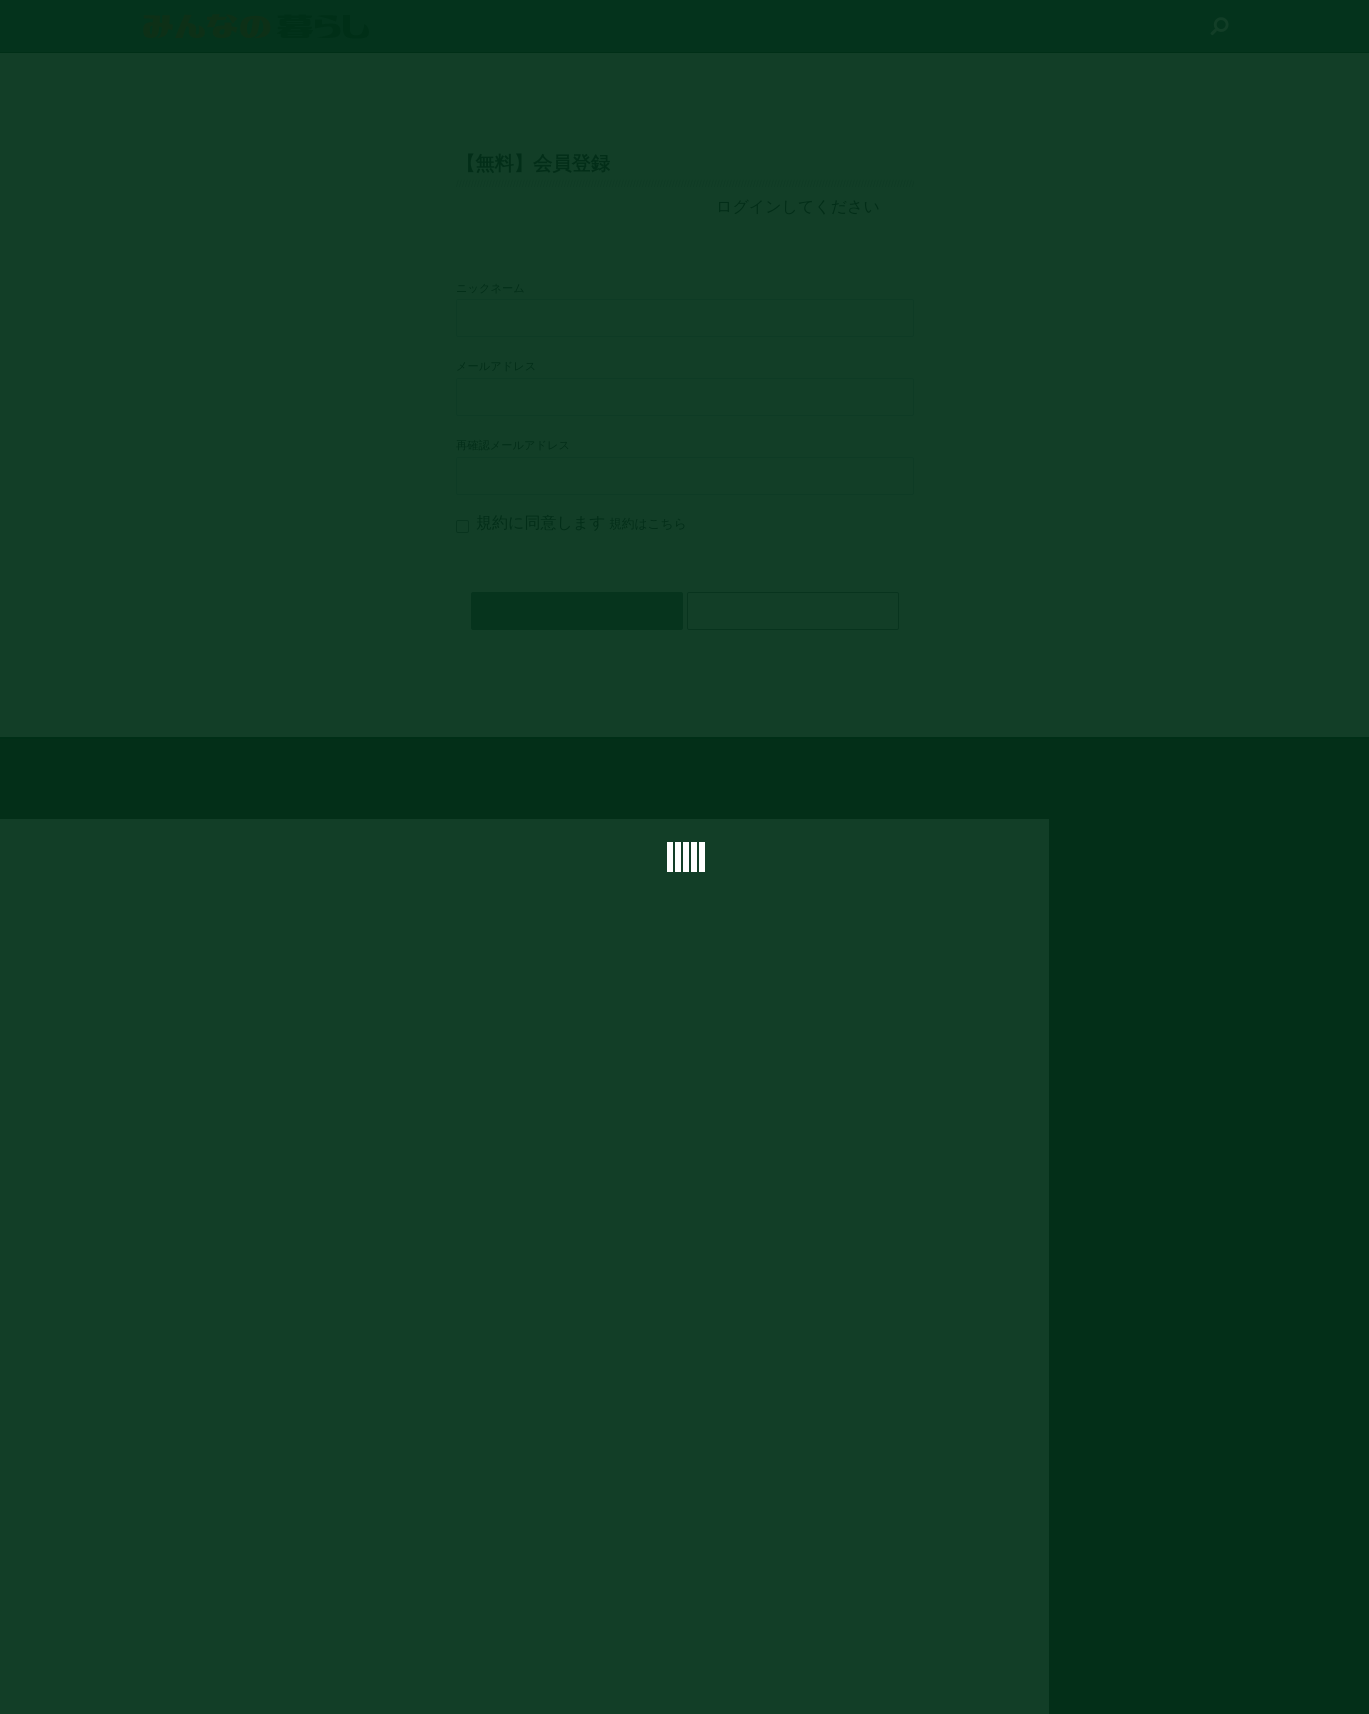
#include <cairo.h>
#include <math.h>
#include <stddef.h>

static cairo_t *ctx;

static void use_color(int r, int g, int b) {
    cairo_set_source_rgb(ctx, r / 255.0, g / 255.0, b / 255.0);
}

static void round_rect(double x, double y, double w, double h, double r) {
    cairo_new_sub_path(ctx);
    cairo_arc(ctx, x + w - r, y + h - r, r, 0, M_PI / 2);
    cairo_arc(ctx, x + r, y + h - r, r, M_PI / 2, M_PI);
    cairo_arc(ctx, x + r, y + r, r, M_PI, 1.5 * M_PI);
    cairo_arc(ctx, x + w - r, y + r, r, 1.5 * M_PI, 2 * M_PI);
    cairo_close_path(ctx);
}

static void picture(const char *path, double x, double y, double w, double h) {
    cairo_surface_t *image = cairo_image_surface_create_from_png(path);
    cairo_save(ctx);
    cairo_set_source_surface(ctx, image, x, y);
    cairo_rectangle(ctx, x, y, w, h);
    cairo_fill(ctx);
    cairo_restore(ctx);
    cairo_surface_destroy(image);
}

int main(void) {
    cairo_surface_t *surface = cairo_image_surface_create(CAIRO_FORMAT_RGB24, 1369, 1714);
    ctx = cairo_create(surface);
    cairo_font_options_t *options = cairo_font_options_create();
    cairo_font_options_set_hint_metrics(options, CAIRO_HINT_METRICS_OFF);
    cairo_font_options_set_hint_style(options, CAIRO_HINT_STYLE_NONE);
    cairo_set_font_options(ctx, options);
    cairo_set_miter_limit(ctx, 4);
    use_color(18, 62, 39);
    cairo_paint(ctx);
    use_color(4, 51, 28);
    cairo_rectangle(ctx, 0, 0, 1369, 52);
    cairo_fill(ctx);
    use_color(0, 47, 23);
    cairo_rectangle(ctx, 0, 52, 1369, 1);
    cairo_fill(ctx);
    picture("img1.png", 143, 14, 226, 25);
    picture("img2.png", 1210, 17, 19, 19);
    picture("img3.png", 456, 179, 458, 8);
    cairo_select_font_face(ctx, "WenQuanYi Zen Hei", CAIRO_FONT_SLANT_NORMAL, CAIRO_FONT_WEIGHT_BOLD);
    cairo_set_font_size(ctx, 19.25);
    use_color(2, 46, 24);
    cairo_move_to(ctx, 456, 170);
    cairo_show_text(ctx, "【無料】会員登録");
    cairo_select_font_face(ctx, "WenQuanYi Zen Hei Medium", CAIRO_FONT_SLANT_NORMAL, CAIRO_FONT_WEIGHT_NORMAL);
    cairo_set_font_size(ctx, 16);
    cairo_move_to(ctx, 716, 212);
    cairo_show_text(ctx, "ログインしてください");
    cairo_set_font_size(ctx, 11.25);
    cairo_move_to(ctx, 456, 292);
    cairo_show_text(ctx, "ニックネーム");
    round_rect(456.5, 299.5, 457, 37, 1.5);
    use_color(14, 59, 37);
    cairo_set_line_width(ctx, 1);
    cairo_stroke(ctx);
    use_color(2, 46, 24);
    cairo_move_to(ctx, 456, 370);
    cairo_show_text(ctx, "メールアドレス");
    round_rect(456.5, 378.5, 457, 37, 1.5);
    use_color(14, 59, 37);
    cairo_stroke(ctx);
    use_color(2, 46, 24);
    cairo_move_to(ctx, 456, 449);
    cairo_show_text(ctx, "再確認メールアドレス");
    round_rect(456.5, 457.5, 457, 37, 1.5);
    use_color(14, 59, 37);
    cairo_stroke(ctx);
    round_rect(456.5, 520.5, 12, 12, 1.5);
    use_color(8, 52, 30);
    cairo_stroke(ctx);
    cairo_set_font_size(ctx, 16);
    use_color(2, 46, 24);
    cairo_move_to(ctx, 476, 528);
    cairo_show_text(ctx, "規約に同意します");
    cairo_set_font_size(ctx, 12.75);
    cairo_move_to(ctx, 609, 528);
    cairo_show_text(ctx, "規約はこちら");
    use_color(6, 52, 29);
    round_rect(471, 592, 212, 38, 2);
    cairo_fill(ctx);
    round_rect(687.5, 592.5, 211, 37, 1.5);
    use_color(8, 52, 30);
    cairo_stroke(ctx);
    use_color(3, 47, 24);
    cairo_rectangle(ctx, 0, 739, 1369, 80);
    cairo_fill(ctx);
    use_color(0, 47, 23);
    cairo_rectangle(ctx, 0, 737, 1369, 2);
    cairo_fill(ctx);
    use_color(255, 255, 255);
    cairo_rectangle(ctx, 667, 842, 6, 30);
    cairo_fill(ctx);
    cairo_rectangle(ctx, 675, 842, 6, 30);
    cairo_fill(ctx);
    cairo_rectangle(ctx, 683, 842, 6, 30);
    cairo_fill(ctx);
    cairo_rectangle(ctx, 691, 842, 6, 30);
    cairo_fill(ctx);
    cairo_rectangle(ctx, 699, 842, 6, 30);
    cairo_fill(ctx);
    use_color(3, 47, 24);
    cairo_rectangle(ctx, 1049, 819, 320, 895);
    cairo_fill(ctx);
    cairo_surface_write_to_png(surface, "result.png");
    cairo_font_options_destroy(options);
    cairo_destroy(ctx);
    cairo_surface_destroy(surface);
    return 0;
}
